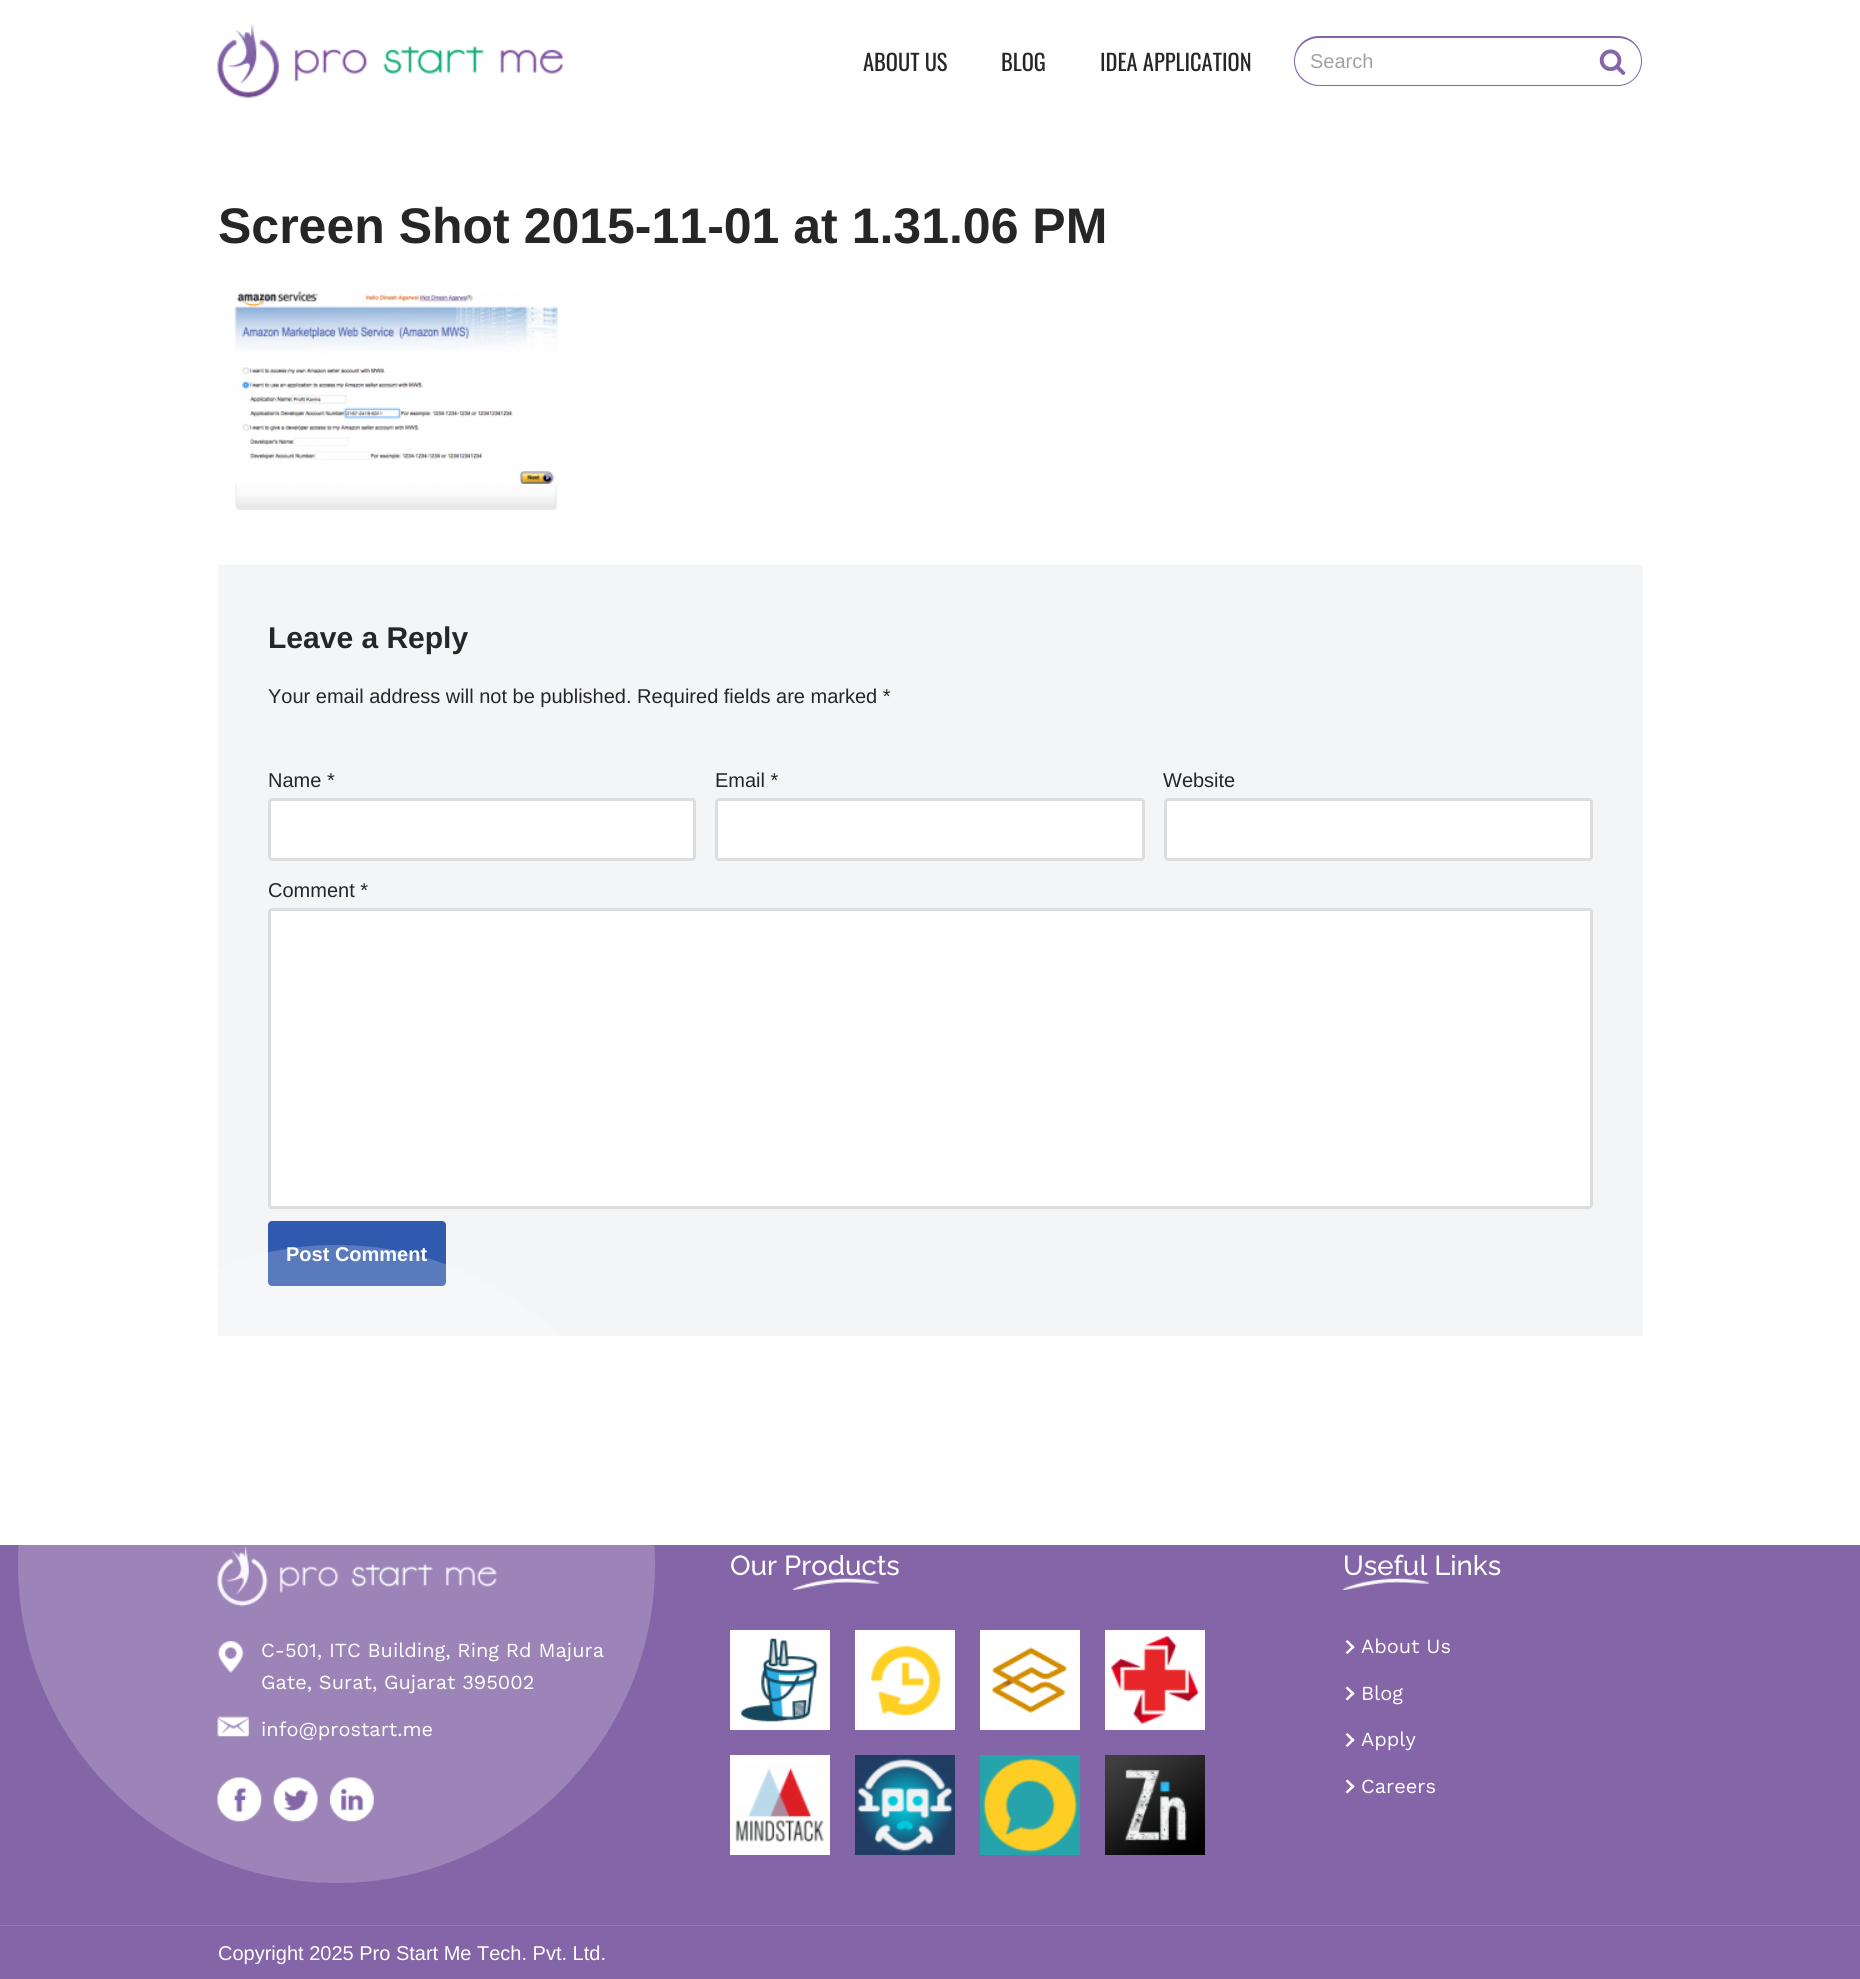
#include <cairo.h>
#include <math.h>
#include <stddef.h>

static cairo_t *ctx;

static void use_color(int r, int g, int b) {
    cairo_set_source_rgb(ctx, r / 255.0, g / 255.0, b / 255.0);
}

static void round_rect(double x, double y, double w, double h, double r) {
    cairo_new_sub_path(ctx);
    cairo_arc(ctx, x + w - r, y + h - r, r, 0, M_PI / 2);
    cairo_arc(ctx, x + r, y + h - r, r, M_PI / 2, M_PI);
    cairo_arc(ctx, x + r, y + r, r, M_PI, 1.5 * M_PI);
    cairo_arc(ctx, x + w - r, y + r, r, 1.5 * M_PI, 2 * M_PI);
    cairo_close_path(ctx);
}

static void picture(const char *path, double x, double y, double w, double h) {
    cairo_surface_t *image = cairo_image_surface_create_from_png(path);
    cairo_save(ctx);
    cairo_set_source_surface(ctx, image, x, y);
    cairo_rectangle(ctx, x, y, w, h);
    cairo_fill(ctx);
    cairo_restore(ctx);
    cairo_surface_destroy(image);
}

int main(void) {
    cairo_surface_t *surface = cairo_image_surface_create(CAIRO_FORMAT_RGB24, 1860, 1979);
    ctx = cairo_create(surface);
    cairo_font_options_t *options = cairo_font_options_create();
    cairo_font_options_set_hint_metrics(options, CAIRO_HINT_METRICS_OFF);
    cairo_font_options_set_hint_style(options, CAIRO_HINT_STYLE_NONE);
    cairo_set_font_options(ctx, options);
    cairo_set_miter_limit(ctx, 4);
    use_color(255, 255, 255);
    cairo_paint(ctx);
    picture("img1.png", 217, 24, 346, 74);
    cairo_select_font_face(ctx, "Oswald", CAIRO_FONT_SLANT_NORMAL, CAIRO_FONT_WEIGHT_NORMAL);
    cairo_set_font_size(ctx, 22.5);
    use_color(39, 38, 38);
    cairo_move_to(ctx, 863, 71);
    cairo_show_text(ctx, "ABOUT US");
    cairo_move_to(ctx, 1001, 71);
    cairo_show_text(ctx, "BLOG");
    cairo_move_to(ctx, 1100, 71);
    cairo_show_text(ctx, "IDEA APPLICATION");
    use_color(131, 101, 168);
    cairo_set_fill_rule(ctx, CAIRO_FILL_RULE_EVEN_ODD);
    cairo_new_path(ctx);
    cairo_move_to(ctx, 1319, 36);
    cairo_line_to(ctx, 1584, 36);
    cairo_line_to(ctx, 1584, 86);
    cairo_line_to(ctx, 1319, 86);
    cairo_curve_to(ctx, 1305, 86, 1294, 75, 1294, 61);
    cairo_curve_to(ctx, 1294, 47, 1305, 36, 1319, 36);
    cairo_close_path(ctx);
    cairo_move_to(ctx, 1319, 38);
    cairo_line_to(ctx, 1584, 38);
    cairo_line_to(ctx, 1584, 85);
    cairo_line_to(ctx, 1319, 85);
    cairo_curve_to(ctx, 1306, 85, 1295, 74, 1295, 61);
    cairo_curve_to(ctx, 1295, 48, 1306, 38, 1319, 38);
    cairo_close_path(ctx);
    cairo_fill(ctx);
    cairo_select_font_face(ctx, "Liberation Sans", CAIRO_FONT_SLANT_NORMAL, CAIRO_FONT_WEIGHT_NORMAL);
    cairo_set_font_size(ctx, 20);
    use_color(162, 162, 162);
    cairo_move_to(ctx, 1310, 68);
    cairo_show_text(ctx, "Search");
    use_color(131, 101, 168);
    cairo_new_path(ctx);
    cairo_move_to(ctx, 1584, 36);
    cairo_line_to(ctx, 1618, 36);
    cairo_curve_to(ctx, 1631, 36, 1642, 47, 1642, 61);
    cairo_curve_to(ctx, 1642, 75, 1631, 86, 1618, 86);
    cairo_line_to(ctx, 1584, 86);
    cairo_close_path(ctx);
    cairo_move_to(ctx, 1584, 38);
    cairo_line_to(ctx, 1618, 38);
    cairo_curve_to(ctx, 1631, 38, 1641, 48, 1641, 61);
    cairo_curve_to(ctx, 1641, 74, 1631, 85, 1618, 85);
    cairo_line_to(ctx, 1584, 85);
    cairo_close_path(ctx);
    cairo_fill(ctx);
    picture("img2.png", 1599, 49, 27, 26);
    cairo_select_font_face(ctx, "Liberation Sans", CAIRO_FONT_SLANT_NORMAL, CAIRO_FONT_WEIGHT_BOLD);
    cairo_set_font_size(ctx, 50);
    use_color(39, 38, 38);
    cairo_move_to(ctx, 218, 243);
    cairo_show_text(ctx, "Screen Shot 2015-11-01 at 1.31.06 PM");
    picture("img3.png", 234, 291, 324, 219);
    use_color(244, 245, 247);
    cairo_rectangle(ctx, 218, 565, 1425, 771);
    cairo_fill(ctx);
    cairo_set_font_size(ctx, 30);
    use_color(39, 38, 38);
    cairo_move_to(ctx, 268, 648);
    cairo_show_text(ctx, "Leave a Reply");
    cairo_select_font_face(ctx, "Liberation Sans", CAIRO_FONT_SLANT_NORMAL, CAIRO_FONT_WEIGHT_NORMAL);
    cairo_set_font_size(ctx, 20);
    cairo_move_to(ctx, 268, 703);
    cairo_show_text(ctx, "Your email address will not be published. Required fields are marked *");
    cairo_move_to(ctx, 268, 787);
    cairo_show_text(ctx, "Name *");
    use_color(255, 255, 255);
    round_rect(269.5, 799.5, 425, 60, 2.5);
    cairo_fill_preserve(ctx);
    use_color(221, 221, 221);
    cairo_set_line_width(ctx, 3);
    cairo_stroke(ctx);
    use_color(39, 38, 38);
    cairo_move_to(ctx, 715, 787);
    cairo_show_text(ctx, "Email *");
    use_color(255, 255, 255);
    round_rect(716.5, 799.5, 427, 60, 2.5);
    cairo_fill_preserve(ctx);
    use_color(221, 221, 221);
    cairo_stroke(ctx);
    use_color(39, 38, 38);
    cairo_move_to(ctx, 1163, 787);
    cairo_show_text(ctx, "Website");
    use_color(255, 255, 255);
    round_rect(1165.5, 799.5, 426, 60, 2.5);
    cairo_fill_preserve(ctx);
    use_color(221, 221, 221);
    cairo_stroke(ctx);
    use_color(39, 38, 38);
    cairo_move_to(ctx, 268, 897);
    cairo_show_text(ctx, "Comment *");
    use_color(255, 255, 255);
    round_rect(269.5, 909.5, 1322, 298, 2.5);
    cairo_fill_preserve(ctx);
    use_color(221, 221, 221);
    cairo_stroke(ctx);
    use_color(47, 90, 174);
    round_rect(268, 1221, 178, 65, 4);
    cairo_fill(ctx);
    cairo_select_font_face(ctx, "Liberation Sans", CAIRO_FONT_SLANT_NORMAL, CAIRO_FONT_WEIGHT_BOLD);
    use_color(255, 255, 255);
    cairo_move_to(ctx, 286, 1261);
    cairo_show_text(ctx, "Post Comment");
    use_color(131, 101, 168);
    cairo_rectangle(ctx, 0, 1545, 1860, 380);
    cairo_fill(ctx);
    cairo_set_source_rgba(ctx, 1, 1, 1, 0.2);
    round_rect(18, 1245, 637, 638, 318.5);
    cairo_fill(ctx);
    picture("img4.png", 217, 1546, 280, 61);
    picture("img5.png", 217, 1641, 27, 32);
    cairo_select_font_face(ctx, "Work Sans", CAIRO_FONT_SLANT_NORMAL, CAIRO_FONT_WEIGHT_NORMAL);
    use_color(255, 255, 255);
    cairo_move_to(ctx, 261, 1657);
    cairo_show_text(ctx, "C-501, ITC Building, Ring Rd Majura");
    cairo_move_to(ctx, 261, 1689);
    cairo_show_text(ctx, "Gate, Surat, Gujarat 395002");
    picture("img6.png", 217, 1716, 32, 21);
    cairo_move_to(ctx, 261, 1736);
    cairo_show_text(ctx, "info@prostart.me");
    picture("img7.png", 217, 1777, 45, 45);
    picture("img8.png", 273, 1777, 45, 45);
    picture("img9.png", 330, 1777, 44, 45);
    picture("img10.png", 792, 1578, 88, 12);
    cairo_select_font_face(ctx, "Raleway Medium", CAIRO_FONT_SLANT_NORMAL, CAIRO_FONT_WEIGHT_NORMAL);
    cairo_set_font_size(ctx, 27.5);
    cairo_move_to(ctx, 730, 1575);
    cairo_show_text(ctx, "Our Products");
    picture("img11.png", 730, 1630, 100, 100);
    picture("img12.png", 855, 1630, 100, 100);
    picture("img13.png", 980, 1630, 100, 100);
    picture("img14.png", 1105, 1630, 100, 100);
    picture("img15.png", 730, 1755, 100, 100);
    picture("img16.png", 855, 1755, 100, 100);
    picture("img17.png", 980, 1755, 100, 100);
    picture("img18.png", 1105, 1755, 100, 100);
    picture("img19.png", 1342, 1578, 88, 12);
    cairo_move_to(ctx, 1343, 1575);
    cairo_show_text(ctx, "Useful Links");
    cairo_set_fill_rule(ctx, CAIRO_FILL_RULE_WINDING);
    cairo_new_path(ctx);
    cairo_move_to(ctx, 1347.5, 1640);
    cairo_line_to(ctx, 1354.5, 1647);
    cairo_line_to(ctx, 1353, 1649);
    cairo_line_to(ctx, 1345.5, 1641.5);
    cairo_close_path(ctx);
    cairo_fill(ctx);
    cairo_new_path(ctx);
    cairo_move_to(ctx, 1353, 1645.5);
    cairo_line_to(ctx, 1354.5, 1647);
    cairo_line_to(ctx, 1347.5, 1654);
    cairo_line_to(ctx, 1345.5, 1652.5);
    cairo_close_path(ctx);
    cairo_fill(ctx);
    cairo_select_font_face(ctx, "Work Sans", CAIRO_FONT_SLANT_NORMAL, CAIRO_FONT_WEIGHT_NORMAL);
    cairo_set_font_size(ctx, 20);
    cairo_move_to(ctx, 1361, 1653);
    cairo_show_text(ctx, "About Us");
    cairo_new_path(ctx);
    cairo_move_to(ctx, 1347.5, 1686.5);
    cairo_line_to(ctx, 1354.5, 1693.5);
    cairo_line_to(ctx, 1353, 1695.5);
    cairo_line_to(ctx, 1345.5, 1688);
    cairo_close_path(ctx);
    cairo_fill(ctx);
    cairo_new_path(ctx);
    cairo_move_to(ctx, 1353, 1691.5);
    cairo_line_to(ctx, 1354.5, 1693.5);
    cairo_line_to(ctx, 1347.5, 1700.5);
    cairo_line_to(ctx, 1345.5, 1699);
    cairo_close_path(ctx);
    cairo_fill(ctx);
    cairo_move_to(ctx, 1361, 1700);
    cairo_show_text(ctx, "Blog");
    cairo_new_path(ctx);
    cairo_move_to(ctx, 1347.5, 1733);
    cairo_line_to(ctx, 1354.5, 1740);
    cairo_line_to(ctx, 1353, 1742);
    cairo_line_to(ctx, 1345.5, 1734.5);
    cairo_close_path(ctx);
    cairo_fill(ctx);
    cairo_new_path(ctx);
    cairo_move_to(ctx, 1353, 1738);
    cairo_line_to(ctx, 1354.5, 1740);
    cairo_line_to(ctx, 1347.5, 1747);
    cairo_line_to(ctx, 1345.5, 1745.5);
    cairo_close_path(ctx);
    cairo_fill(ctx);
    cairo_move_to(ctx, 1361, 1746);
    cairo_show_text(ctx, "Apply");
    cairo_new_path(ctx);
    cairo_move_to(ctx, 1347.5, 1779.5);
    cairo_line_to(ctx, 1354.5, 1786.5);
    cairo_line_to(ctx, 1353, 1788.5);
    cairo_line_to(ctx, 1345.5, 1781);
    cairo_close_path(ctx);
    cairo_fill(ctx);
    cairo_new_path(ctx);
    cairo_move_to(ctx, 1353, 1784.5);
    cairo_line_to(ctx, 1354.5, 1786.5);
    cairo_line_to(ctx, 1347.5, 1793.5);
    cairo_line_to(ctx, 1345.5, 1792);
    cairo_close_path(ctx);
    cairo_fill(ctx);
    cairo_move_to(ctx, 1361, 1793);
    cairo_show_text(ctx, "Careers");
    use_color(131, 101, 168);
    cairo_rectangle(ctx, 0, 1926, 1860, 53);
    cairo_fill(ctx);
    use_color(147, 121, 179);
    cairo_rectangle(ctx, 0, 1925, 1860, 1);
    cairo_fill(ctx);
    cairo_select_font_face(ctx, "Liberation Sans", CAIRO_FONT_SLANT_NORMAL, CAIRO_FONT_WEIGHT_NORMAL);
    use_color(255, 255, 255);
    cairo_move_to(ctx, 218, 1960);
    cairo_show_text(ctx, "Copyright 2025 Pro Start Me Tech. Pvt. Ltd.");
    cairo_surface_write_to_png(surface, "result.png");
    cairo_font_options_destroy(options);
    cairo_destroy(ctx);
    cairo_surface_destroy(surface);
    return 0;
}
